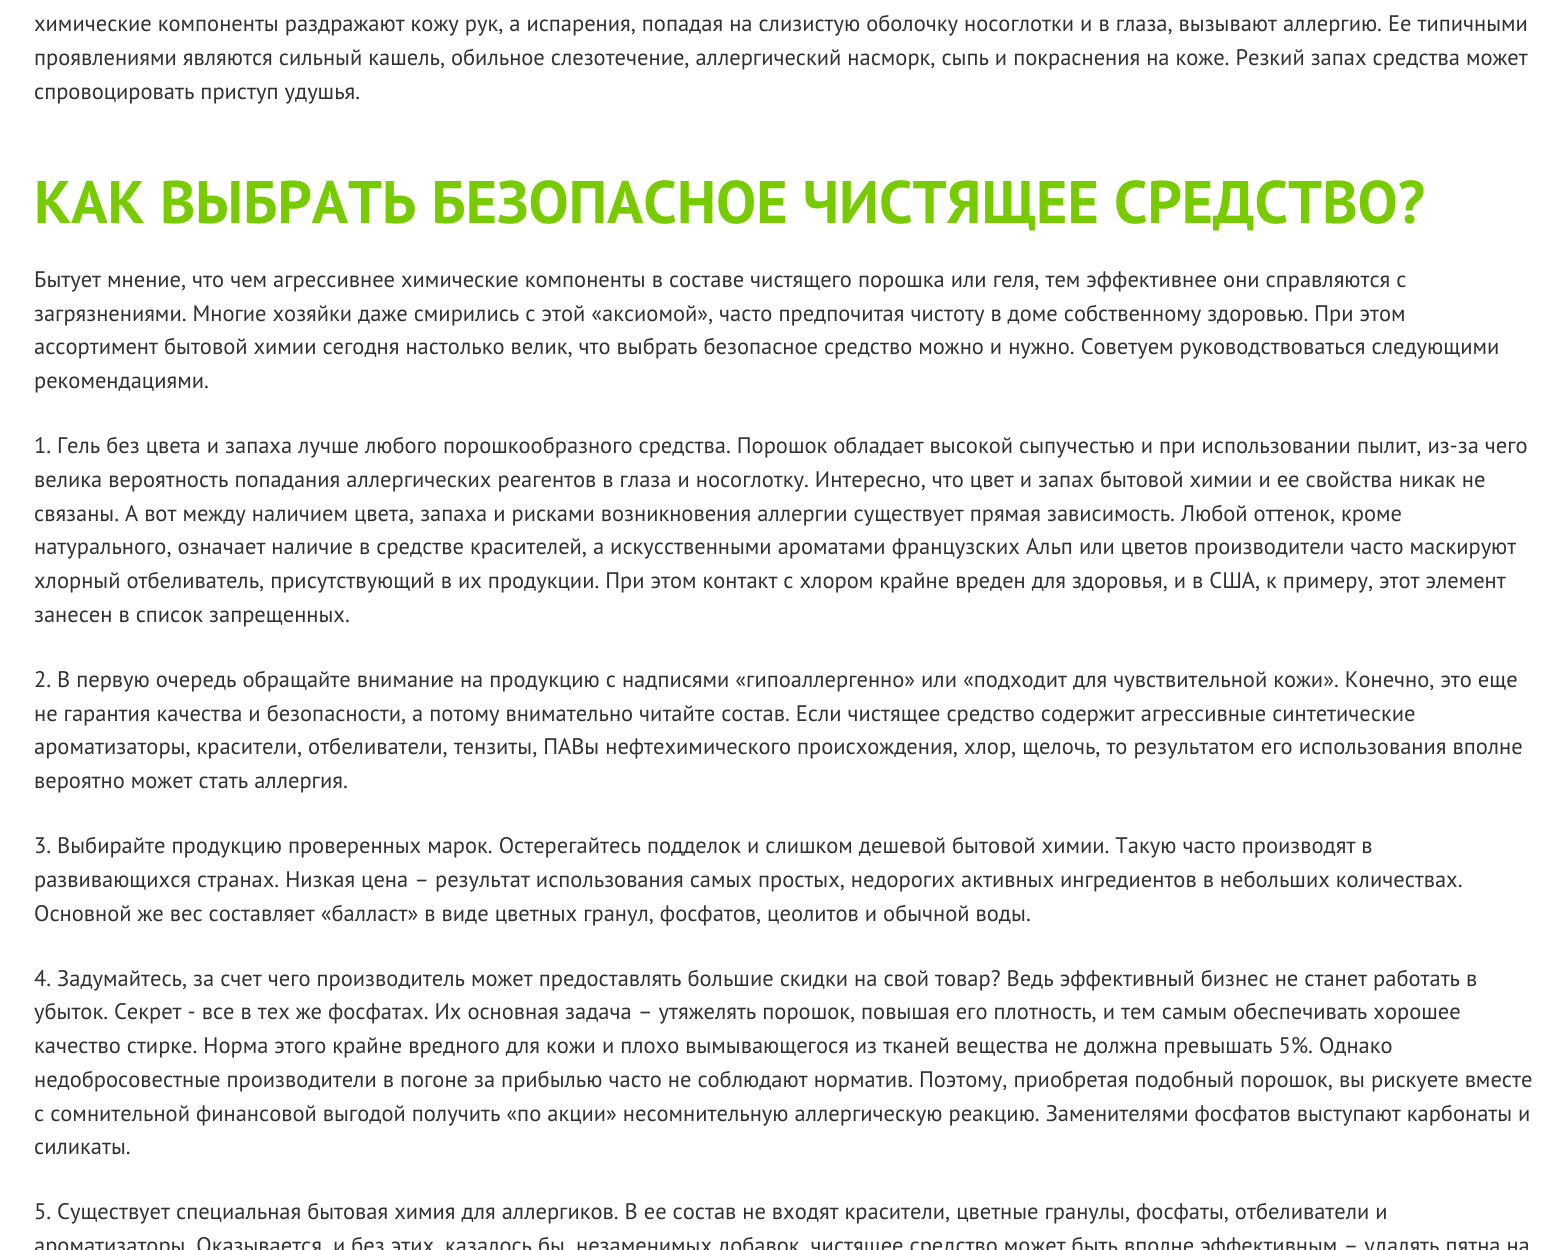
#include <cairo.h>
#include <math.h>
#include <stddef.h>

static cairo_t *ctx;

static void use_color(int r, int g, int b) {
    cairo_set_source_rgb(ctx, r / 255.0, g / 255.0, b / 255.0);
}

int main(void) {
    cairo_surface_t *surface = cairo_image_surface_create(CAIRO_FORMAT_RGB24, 1567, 1250);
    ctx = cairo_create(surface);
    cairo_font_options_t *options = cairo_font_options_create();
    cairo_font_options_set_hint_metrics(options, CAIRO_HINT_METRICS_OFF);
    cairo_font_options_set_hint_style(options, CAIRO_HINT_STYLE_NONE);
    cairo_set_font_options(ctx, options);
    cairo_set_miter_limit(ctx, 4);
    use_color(255, 255, 255);
    cairo_paint(ctx);
    cairo_select_font_face(ctx, "PT Sans", CAIRO_FONT_SLANT_NORMAL, CAIRO_FONT_WEIGHT_NORMAL);
    cairo_set_font_size(ctx, 22.5);
    use_color(49, 49, 49);
    cairo_move_to(ctx, 34, 31);
    cairo_show_text(ctx, "химические компоненты раздражают кожу рук, а испарения, попадая на слизистую оболочку носоглотки и в глаза, вызывают аллергию. Ее типичными");
    cairo_move_to(ctx, 34, 65);
    cairo_show_text(ctx, "проявлениями являются сильный кашель, обильное слезотечение, аллергический насморк, сыпь и покраснения на коже. Резкий запах средства может");
    cairo_move_to(ctx, 34, 99);
    cairo_show_text(ctx, "спровоцировать приступ удушья.");
    cairo_select_font_face(ctx, "PT Sans", CAIRO_FONT_SLANT_NORMAL, CAIRO_FONT_WEIGHT_BOLD);
    cairo_set_font_size(ctx, 60);
    use_color(119, 203, 0);
    cairo_move_to(ctx, 34, 223);
    cairo_show_text(ctx, "КАК ВЫБРАТЬ БЕЗОПАСНОЕ ЧИСТЯЩЕЕ СРЕДСТВО?");
    cairo_select_font_face(ctx, "PT Sans", CAIRO_FONT_SLANT_NORMAL, CAIRO_FONT_WEIGHT_NORMAL);
    cairo_set_font_size(ctx, 22.5);
    use_color(49, 49, 49);
    cairo_move_to(ctx, 34, 287);
    cairo_show_text(ctx, "Бытует мнение, что чем агрессивнее химические компоненты в составе чистящего порошка или геля, тем эффективнее они справляются с");
    cairo_move_to(ctx, 34, 321);
    cairo_show_text(ctx, "загрязнениями. Многие хозяйки даже смирились с этой «аксиомой», часто предпочитая чистоту в доме собственному здоровью. При этом");
    cairo_move_to(ctx, 34, 354);
    cairo_show_text(ctx, "ассортимент бытовой химии сегодня настолько велик, что выбрать безопасное средство можно и нужно. Советуем руководствоваться следующими");
    cairo_move_to(ctx, 34, 388);
    cairo_show_text(ctx, "рекомендациями.");
    cairo_move_to(ctx, 34, 453);
    cairo_show_text(ctx, "1. Гель без цвета и запаха лучше любого порошкообразного средства. Порошок обладает высокой сыпучестью и при использовании пылит, из-за чего");
    cairo_move_to(ctx, 34, 487);
    cairo_show_text(ctx, "велика вероятность попадания аллергических реагентов в глаза и носоглотку. Интересно, что цвет и запах бытовой химии и ее свойства никак не");
    cairo_move_to(ctx, 34, 521);
    cairo_show_text(ctx, "связаны. А вот между наличием цвета, запаха и рисками возникновения аллергии существует прямая зависимость. Любой оттенок, кроме");
    cairo_move_to(ctx, 34, 554);
    cairo_show_text(ctx, "натурального, означает наличие в средстве красителей, а искусственными ароматами французских Альп или цветов производители часто маскируют");
    cairo_move_to(ctx, 34, 588);
    cairo_show_text(ctx, "хлорный отбеливатель, присутствующий в их продукции. При этом контакт с хлором крайне вреден для здоровья, и в США, к примеру, этот элемент");
    cairo_move_to(ctx, 34, 622);
    cairo_show_text(ctx, "занесен в список запрещенных.");
    cairo_move_to(ctx, 34, 687);
    cairo_show_text(ctx, "2. В первую очередь обращайте внимание на продукцию с надписями «гипоаллергенно» или «подходит для чувствительной кожи». Конечно, это еще");
    cairo_move_to(ctx, 34, 721);
    cairo_show_text(ctx, "не гарантия качества и безопасности, а потому внимательно читайте состав. Если чистящее средство содержит агрессивные синтетические");
    cairo_move_to(ctx, 34, 754);
    cairo_show_text(ctx, "ароматизаторы, красители, отбеливатели, тензиты, ПАВы нефтехимического происхождения, хлор, щелочь, то результатом его использования вполне");
    cairo_move_to(ctx, 34, 788);
    cairo_show_text(ctx, "вероятно может стать аллергия.");
    cairo_move_to(ctx, 34, 853);
    cairo_show_text(ctx, "3. Выбирайте продукцию проверенных марок. Остерегайтесь подделок и слишком дешевой бытовой химии. Такую часто производят в");
    cairo_move_to(ctx, 34, 887);
    cairo_show_text(ctx, "развивающихся странах. Низкая цена – результат использования самых простых, недорогих активных ингредиентов в небольших количествах.");
    cairo_move_to(ctx, 34, 921);
    cairo_show_text(ctx, "Основной же вес составляет «балласт» в виде цветных гранул, фосфатов, цеолитов и обычной воды.");
    cairo_move_to(ctx, 34, 986);
    cairo_show_text(ctx, "4. Задумайтесь, за счет чего производитель может предоставлять большие скидки на свой товар? Ведь эффективный бизнес не станет работать в");
    cairo_move_to(ctx, 34, 1019);
    cairo_show_text(ctx, "убыток. Секрет - все в тех же фосфатах. Их основная задача – утяжелять порошок, повышая его плотность, и тем самым обеспечивать хорошее");
    cairo_move_to(ctx, 34, 1053);
    cairo_show_text(ctx, "качество стирке. Норма этого крайне вредного для кожи и плохо вымывающегося из тканей вещества не должна превышать 5%. Однако");
    cairo_move_to(ctx, 34, 1087);
    cairo_show_text(ctx, "недобросовестные производители в погоне за прибылью часто не соблюдают норматив. Поэтому, приобретая подобный порошок, вы рискуете вместе");
    cairo_move_to(ctx, 34, 1121);
    cairo_show_text(ctx, "с сомнительной финансовой выгодой получить «по акции» несомнительную аллергическую реакцию. Заменителями фосфатов выступают карбонаты и");
    cairo_move_to(ctx, 34, 1154);
    cairo_show_text(ctx, "силикаты.");
    cairo_move_to(ctx, 34, 1219);
    cairo_show_text(ctx, "5. Существует специальная бытовая химия для аллергиков. В ее состав не входят красители, цветные гранулы, фосфаты, отбеливатели и");
    cairo_move_to(ctx, 34, 1253);
    cairo_show_text(ctx, "ароматизаторы. Оказывается, и без этих, казалось бы, незаменимых добавок, чистящее средство может быть вполне эффективным – удалять пятна на");
    cairo_surface_write_to_png(surface, "result.png");
    cairo_font_options_destroy(options);
    cairo_destroy(ctx);
    cairo_surface_destroy(surface);
    return 0;
}
